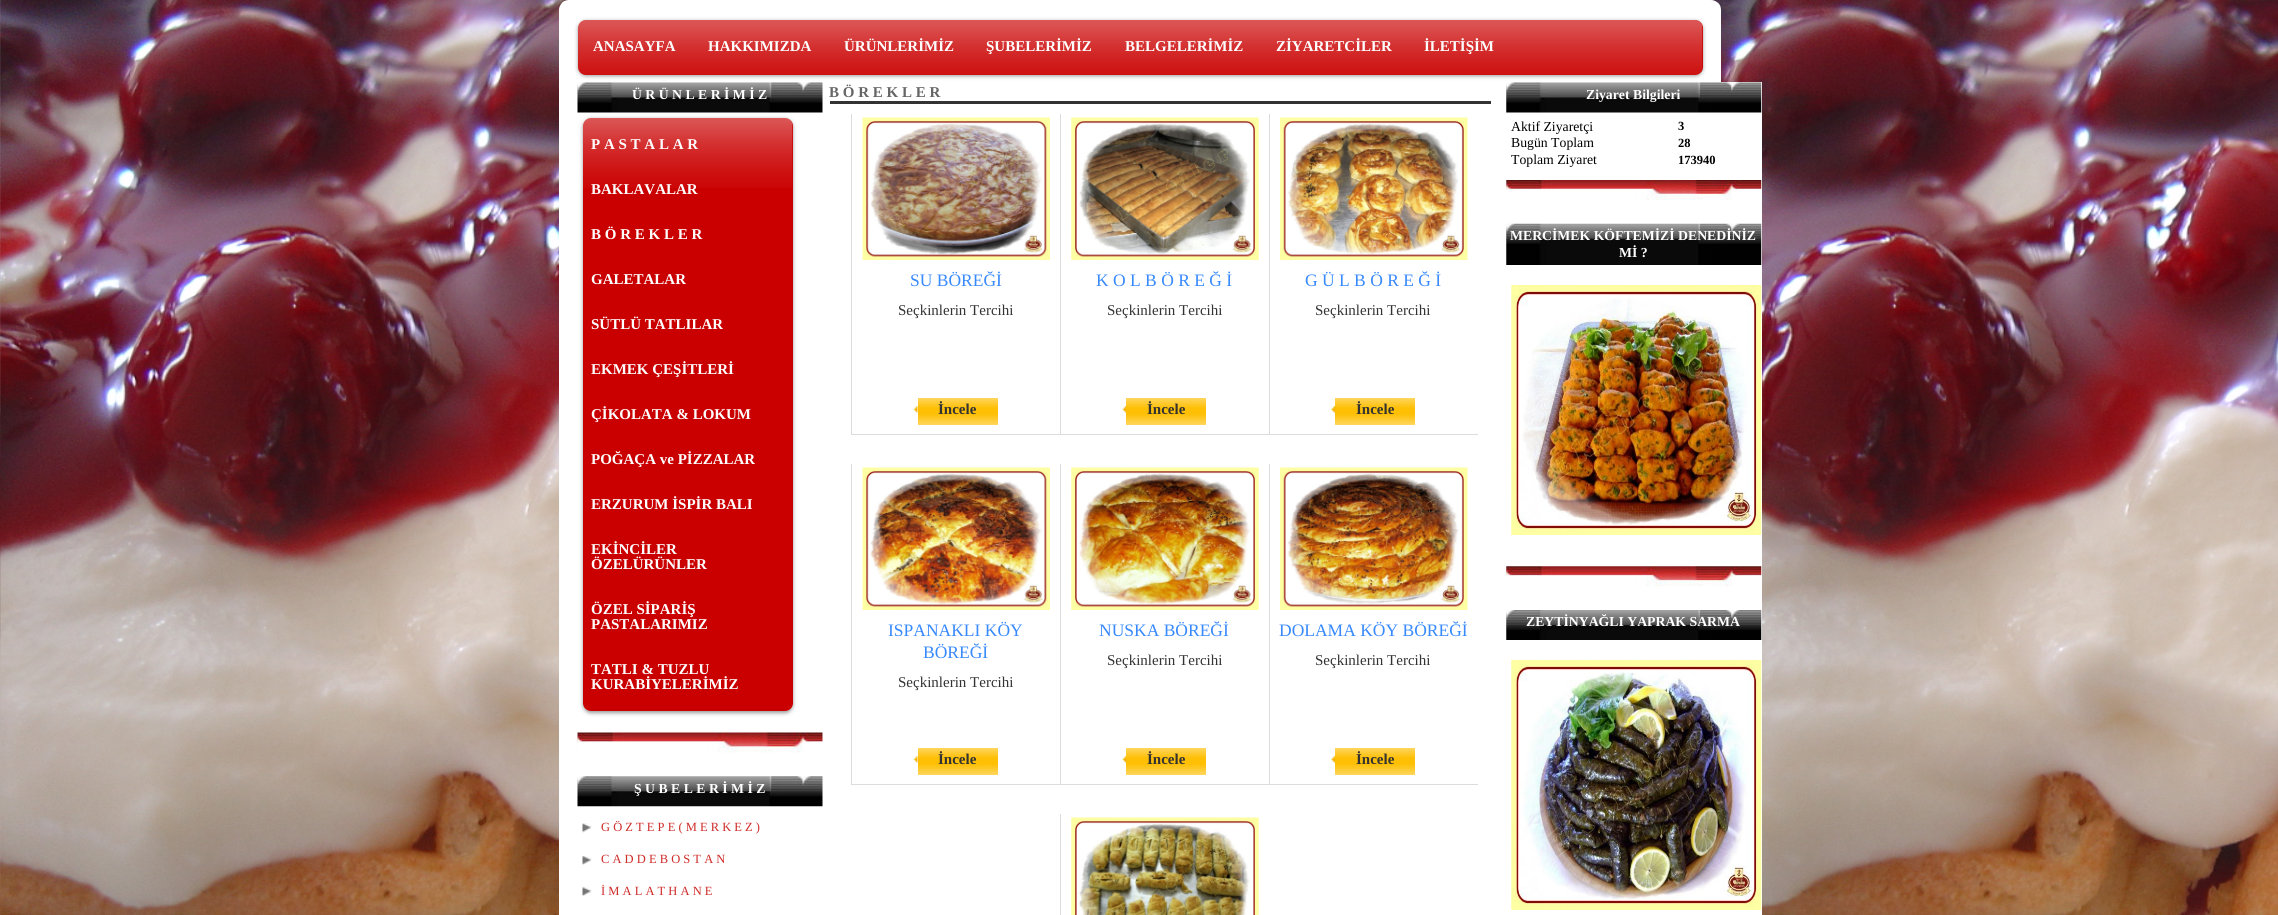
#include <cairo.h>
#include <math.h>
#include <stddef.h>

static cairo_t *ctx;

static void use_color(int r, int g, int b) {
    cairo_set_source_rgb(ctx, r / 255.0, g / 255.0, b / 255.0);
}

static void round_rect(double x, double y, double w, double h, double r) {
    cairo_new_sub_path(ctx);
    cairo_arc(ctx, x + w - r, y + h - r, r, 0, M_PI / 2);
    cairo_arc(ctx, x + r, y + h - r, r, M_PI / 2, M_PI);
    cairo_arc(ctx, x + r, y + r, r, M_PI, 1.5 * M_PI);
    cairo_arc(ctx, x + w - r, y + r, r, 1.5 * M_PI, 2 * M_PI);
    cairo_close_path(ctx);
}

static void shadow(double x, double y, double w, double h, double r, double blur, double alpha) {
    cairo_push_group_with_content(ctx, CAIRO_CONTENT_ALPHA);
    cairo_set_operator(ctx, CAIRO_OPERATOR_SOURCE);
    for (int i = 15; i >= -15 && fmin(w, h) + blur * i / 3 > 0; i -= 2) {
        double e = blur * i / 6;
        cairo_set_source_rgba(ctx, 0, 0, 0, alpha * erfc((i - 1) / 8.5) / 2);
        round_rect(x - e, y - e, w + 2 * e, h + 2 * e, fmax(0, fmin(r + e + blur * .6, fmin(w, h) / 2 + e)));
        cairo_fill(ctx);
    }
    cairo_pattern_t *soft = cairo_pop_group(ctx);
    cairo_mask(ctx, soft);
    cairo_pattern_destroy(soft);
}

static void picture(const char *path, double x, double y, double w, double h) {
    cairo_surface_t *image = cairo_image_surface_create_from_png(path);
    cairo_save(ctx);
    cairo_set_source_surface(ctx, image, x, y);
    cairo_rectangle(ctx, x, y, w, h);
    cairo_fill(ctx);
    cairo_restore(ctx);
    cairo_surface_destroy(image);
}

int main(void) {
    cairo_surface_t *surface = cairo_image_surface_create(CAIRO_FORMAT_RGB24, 2278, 915);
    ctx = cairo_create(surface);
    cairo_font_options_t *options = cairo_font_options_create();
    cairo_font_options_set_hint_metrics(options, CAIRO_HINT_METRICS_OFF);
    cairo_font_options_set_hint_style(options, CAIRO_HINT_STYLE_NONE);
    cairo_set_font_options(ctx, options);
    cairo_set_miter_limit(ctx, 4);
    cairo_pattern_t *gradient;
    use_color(255, 255, 255);
    cairo_paint(ctx);
    picture("img1.png", 0, 0, 2278, 915);
    use_color(255, 255, 255);
    cairo_new_path(ctx);
    cairo_move_to(ctx, 569, 9.5);
    cairo_line_to(ctx, 1711, 9.5);
    cairo_curve_to(ctx, 1711.5, 9.5, 1711.5, 9.5, 1711.5, 10);
    cairo_line_to(ctx, 1711.5, 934.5);
    cairo_line_to(ctx, 568.5, 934.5);
    cairo_line_to(ctx, 568.5, 10);
    cairo_curve_to(ctx, 568.5, 9.5, 568.5, 9.5, 569, 9.5);
    cairo_close_path(ctx);
    cairo_fill_preserve(ctx);
    cairo_set_line_width(ctx, 19);
    cairo_stroke(ctx);
    use_color(0, 0, 0);
    shadow(578, 21, 1125, 55, 8, 2, 0.4);
    use_color(202, 0, 0);
    round_rect(578, 20, 1125, 55, 8);
    cairo_fill(ctx);
    picture("img2.png", 578, 20, 1125, 55);
    cairo_select_font_face(ctx, "Liberation Serif", CAIRO_FONT_SLANT_NORMAL, CAIRO_FONT_WEIGHT_BOLD);
    cairo_set_font_size(ctx, 15);
    use_color(255, 255, 255);
    cairo_move_to(ctx, 593, 51);
    cairo_show_text(ctx, "ANASAYFA");
    cairo_move_to(ctx, 708, 51);
    cairo_show_text(ctx, "HAKKIMIZDA");
    cairo_move_to(ctx, 844, 51);
    cairo_show_text(ctx, "ÜRÜNLERİMİZ");
    cairo_move_to(ctx, 986, 51);
    cairo_show_text(ctx, "ŞUBELERİMİZ");
    cairo_move_to(ctx, 1125, 51);
    cairo_show_text(ctx, "BELGELERİMİZ");
    cairo_move_to(ctx, 1276, 51);
    cairo_show_text(ctx, "ZİYARETCİLER");
    cairo_move_to(ctx, 1424, 51);
    cairo_show_text(ctx, "İLETİŞİM");
    picture("img3.png", 577, 82, 246, 31);
    cairo_set_font_size(ctx, 13.75);
    cairo_move_to(ctx, 632, 99);
    cairo_show_text(ctx, "Ü R Ü N L E R İ M İ Z");
    use_color(0, 0, 0);
    shadow(583, 119, 210, 594, 8, 2, 0.4);
    use_color(202, 0, 0);
    round_rect(583, 118, 210, 593, 8);
    cairo_fill(ctx);
    picture("img4.png", 583, 118, 210, 70);
    cairo_set_font_size(ctx, 15);
    use_color(255, 255, 255);
    cairo_move_to(ctx, 591, 149);
    cairo_show_text(ctx, "P A S T A L A R");
    cairo_move_to(ctx, 591, 194);
    cairo_show_text(ctx, "BAKLAVALAR");
    cairo_move_to(ctx, 591, 239);
    cairo_show_text(ctx, "B Ö R E K L E R");
    cairo_move_to(ctx, 591, 284);
    cairo_show_text(ctx, "GALETALAR");
    cairo_move_to(ctx, 591, 329);
    cairo_show_text(ctx, "SÜTLÜ TATLILAR");
    cairo_move_to(ctx, 591, 374);
    cairo_show_text(ctx, "EKMEK ÇEŞİTLERİ");
    cairo_move_to(ctx, 591, 419);
    cairo_show_text(ctx, "ÇİKOLATA & LOKUM");
    cairo_move_to(ctx, 591, 464);
    cairo_show_text(ctx, "POĞAÇA ve PİZZALAR");
    cairo_move_to(ctx, 591, 509);
    cairo_show_text(ctx, "ERZURUM İSPİR BALI");
    cairo_move_to(ctx, 591, 554);
    cairo_show_text(ctx, "EKİNCİLER");
    cairo_move_to(ctx, 591, 569);
    cairo_show_text(ctx, "ÖZELÜRÜNLER");
    cairo_move_to(ctx, 591, 614);
    cairo_show_text(ctx, "ÖZEL SİPARİŞ");
    cairo_move_to(ctx, 591, 629);
    cairo_show_text(ctx, "PASTALARIMIZ");
    cairo_move_to(ctx, 591, 674);
    cairo_show_text(ctx, "TATLI & TUZLU");
    cairo_move_to(ctx, 591, 689);
    cairo_show_text(ctx, "KURABİYELERİMİZ");
    picture("img5.png", 577, 732, 246, 21);
    picture("img6.png", 577, 776, 246, 31);
    cairo_set_font_size(ctx, 13.75);
    cairo_move_to(ctx, 634, 793);
    cairo_show_text(ctx, "Ş U B E L E R İ M İ Z");
    picture("img7.png", 582, 823, 10, 10);
    cairo_select_font_face(ctx, "Liberation Serif", CAIRO_FONT_SLANT_NORMAL, CAIRO_FONT_WEIGHT_NORMAL);
    cairo_set_font_size(ctx, 12.5);
    use_color(206, 44, 41);
    cairo_move_to(ctx, 601, 831);
    cairo_show_text(ctx, "G Ö Z T E P E ( M E R K E Z )");
    picture("img8.png", 582, 855, 10, 10);
    cairo_move_to(ctx, 601, 863);
    cairo_show_text(ctx, "C A D D E B O S T A N");
    picture("img9.png", 582, 886, 10, 11);
    cairo_move_to(ctx, 601, 895);
    cairo_show_text(ctx, "İ M A L A T H A N E");
    use_color(51, 51, 51);
    cairo_rectangle(ctx, 830, 101, 661, 3);
    cairo_fill(ctx);
    cairo_select_font_face(ctx, "Liberation Serif", CAIRO_FONT_SLANT_NORMAL, CAIRO_FONT_WEIGHT_BOLD);
    cairo_set_font_size(ctx, 15);
    use_color(102, 102, 102);
    cairo_move_to(ctx, 829, 97);
    cairo_show_text(ctx, "B Ö R E K L E R");
    use_color(220, 220, 220);
    cairo_rectangle(ctx, 851, 434, 627, 1);
    cairo_fill(ctx);
    cairo_rectangle(ctx, 851, 114, 1, 321);
    cairo_fill(ctx);
    picture("img10.png", 862, 117, 188, 143);
    cairo_select_font_face(ctx, "Liberation Serif", CAIRO_FONT_SLANT_NORMAL, CAIRO_FONT_WEIGHT_NORMAL);
    cairo_set_font_size(ctx, 17.5);
    use_color(55, 137, 252);
    cairo_move_to(ctx, 910, 286);
    cairo_show_text(ctx, "SU BÖREĞİ");
    cairo_set_font_size(ctx, 15);
    use_color(51, 51, 51);
    cairo_move_to(ctx, 898, 315);
    cairo_show_text(ctx, "Seçkinlerin Tercihi");
    picture("img11.png", 913, 406, 5, 7);
    gradient = cairo_pattern_create_linear(958, 398, 958, 425);
    cairo_pattern_add_color_stop_rgba(gradient, 0, 1, 0.839, 0.369, 1);
    cairo_pattern_add_color_stop_rgba(gradient, 0.38, 0.996, 0.749, 0.016, 1);
    cairo_pattern_add_color_stop_rgba(gradient, 0.59, 0.996, 0.749, 0.016, 1);
    cairo_pattern_add_color_stop_rgba(gradient, 1, 1, 0.839, 0.369, 1);
    cairo_set_source(ctx, gradient);
    cairo_pattern_destroy(gradient);
    cairo_rectangle(ctx, 918, 398, 80, 27);
    cairo_fill(ctx);
    cairo_select_font_face(ctx, "Liberation Serif", CAIRO_FONT_SLANT_NORMAL, CAIRO_FONT_WEIGHT_BOLD);
    use_color(51, 51, 51);
    cairo_move_to(ctx, 938, 414);
    cairo_show_text(ctx, "İncele");
    use_color(220, 220, 220);
    cairo_rectangle(ctx, 1060, 114, 1, 321);
    cairo_fill(ctx);
    picture("img12.png", 1071, 117, 188, 143);
    cairo_select_font_face(ctx, "Liberation Serif", CAIRO_FONT_SLANT_NORMAL, CAIRO_FONT_WEIGHT_NORMAL);
    cairo_set_font_size(ctx, 17.5);
    use_color(55, 137, 252);
    cairo_move_to(ctx, 1096, 286);
    cairo_show_text(ctx, "K O L B Ö R E Ğ İ");
    cairo_set_font_size(ctx, 15);
    use_color(51, 51, 51);
    cairo_move_to(ctx, 1107, 315);
    cairo_show_text(ctx, "Seçkinlerin Tercihi");
    picture("img13.png", 1122, 406, 4, 7);
    gradient = cairo_pattern_create_linear(1166, 398, 1166, 425);
    cairo_pattern_add_color_stop_rgba(gradient, 0, 1, 0.839, 0.369, 1);
    cairo_pattern_add_color_stop_rgba(gradient, 0.38, 0.996, 0.749, 0.016, 1);
    cairo_pattern_add_color_stop_rgba(gradient, 0.59, 0.996, 0.749, 0.016, 1);
    cairo_pattern_add_color_stop_rgba(gradient, 1, 1, 0.839, 0.369, 1);
    cairo_set_source(ctx, gradient);
    cairo_pattern_destroy(gradient);
    cairo_rectangle(ctx, 1126, 398, 80, 27);
    cairo_fill(ctx);
    cairo_select_font_face(ctx, "Liberation Serif", CAIRO_FONT_SLANT_NORMAL, CAIRO_FONT_WEIGHT_BOLD);
    use_color(51, 51, 51);
    cairo_move_to(ctx, 1147, 414);
    cairo_show_text(ctx, "İncele");
    use_color(220, 220, 220);
    cairo_rectangle(ctx, 1269, 114, 1, 321);
    cairo_fill(ctx);
    picture("img14.png", 1280, 117, 188, 143);
    cairo_select_font_face(ctx, "Liberation Serif", CAIRO_FONT_SLANT_NORMAL, CAIRO_FONT_WEIGHT_NORMAL);
    cairo_set_font_size(ctx, 17.5);
    use_color(55, 137, 252);
    cairo_move_to(ctx, 1305, 286);
    cairo_show_text(ctx, "G Ü L B Ö R E Ğ İ");
    cairo_set_font_size(ctx, 15);
    use_color(51, 51, 51);
    cairo_move_to(ctx, 1315, 315);
    cairo_show_text(ctx, "Seçkinlerin Tercihi");
    picture("img15.png", 1331, 406, 4, 7);
    gradient = cairo_pattern_create_linear(1375, 398, 1375, 425);
    cairo_pattern_add_color_stop_rgba(gradient, 0, 1, 0.839, 0.369, 1);
    cairo_pattern_add_color_stop_rgba(gradient, 0.38, 0.996, 0.749, 0.016, 1);
    cairo_pattern_add_color_stop_rgba(gradient, 0.59, 0.996, 0.749, 0.016, 1);
    cairo_pattern_add_color_stop_rgba(gradient, 1, 1, 0.839, 0.369, 1);
    cairo_set_source(ctx, gradient);
    cairo_pattern_destroy(gradient);
    cairo_rectangle(ctx, 1335, 398, 80, 27);
    cairo_fill(ctx);
    cairo_select_font_face(ctx, "Liberation Serif", CAIRO_FONT_SLANT_NORMAL, CAIRO_FONT_WEIGHT_BOLD);
    use_color(51, 51, 51);
    cairo_move_to(ctx, 1356, 414);
    cairo_show_text(ctx, "İncele");
    use_color(220, 220, 220);
    cairo_rectangle(ctx, 851, 784, 627, 1);
    cairo_fill(ctx);
    cairo_rectangle(ctx, 851, 464, 1, 321);
    cairo_fill(ctx);
    picture("img16.png", 862, 467, 188, 143);
    cairo_select_font_face(ctx, "Liberation Serif", CAIRO_FONT_SLANT_NORMAL, CAIRO_FONT_WEIGHT_NORMAL);
    cairo_set_font_size(ctx, 17.5);
    use_color(55, 137, 252);
    cairo_move_to(ctx, 888, 636);
    cairo_show_text(ctx, "ISPANAKLI KÖY");
    cairo_move_to(ctx, 923, 658);
    cairo_show_text(ctx, "BÖREĞİ");
    cairo_set_font_size(ctx, 15);
    use_color(51, 51, 51);
    cairo_move_to(ctx, 898, 687);
    cairo_show_text(ctx, "Seçkinlerin Tercihi");
    picture("img11.png", 913, 756, 5, 7);
    gradient = cairo_pattern_create_linear(958, 748, 958, 775);
    cairo_pattern_add_color_stop_rgba(gradient, 0, 1, 0.839, 0.369, 1);
    cairo_pattern_add_color_stop_rgba(gradient, 0.38, 0.996, 0.749, 0.016, 1);
    cairo_pattern_add_color_stop_rgba(gradient, 0.59, 0.996, 0.749, 0.016, 1);
    cairo_pattern_add_color_stop_rgba(gradient, 1, 1, 0.839, 0.369, 1);
    cairo_set_source(ctx, gradient);
    cairo_pattern_destroy(gradient);
    cairo_rectangle(ctx, 918, 748, 80, 27);
    cairo_fill(ctx);
    cairo_select_font_face(ctx, "Liberation Serif", CAIRO_FONT_SLANT_NORMAL, CAIRO_FONT_WEIGHT_BOLD);
    use_color(51, 51, 51);
    cairo_move_to(ctx, 938, 764);
    cairo_show_text(ctx, "İncele");
    use_color(220, 220, 220);
    cairo_rectangle(ctx, 1060, 464, 1, 321);
    cairo_fill(ctx);
    picture("img17.png", 1071, 467, 188, 143);
    cairo_select_font_face(ctx, "Liberation Serif", CAIRO_FONT_SLANT_NORMAL, CAIRO_FONT_WEIGHT_NORMAL);
    cairo_set_font_size(ctx, 17.5);
    use_color(55, 137, 252);
    cairo_move_to(ctx, 1099, 636);
    cairo_show_text(ctx, "NUSKA BÖREĞİ");
    cairo_set_font_size(ctx, 15);
    use_color(51, 51, 51);
    cairo_move_to(ctx, 1107, 665);
    cairo_show_text(ctx, "Seçkinlerin Tercihi");
    picture("img13.png", 1122, 756, 4, 7);
    gradient = cairo_pattern_create_linear(1166, 748, 1166, 775);
    cairo_pattern_add_color_stop_rgba(gradient, 0, 1, 0.839, 0.369, 1);
    cairo_pattern_add_color_stop_rgba(gradient, 0.38, 0.996, 0.749, 0.016, 1);
    cairo_pattern_add_color_stop_rgba(gradient, 0.59, 0.996, 0.749, 0.016, 1);
    cairo_pattern_add_color_stop_rgba(gradient, 1, 1, 0.839, 0.369, 1);
    cairo_set_source(ctx, gradient);
    cairo_pattern_destroy(gradient);
    cairo_rectangle(ctx, 1126, 748, 80, 27);
    cairo_fill(ctx);
    cairo_select_font_face(ctx, "Liberation Serif", CAIRO_FONT_SLANT_NORMAL, CAIRO_FONT_WEIGHT_BOLD);
    use_color(51, 51, 51);
    cairo_move_to(ctx, 1147, 764);
    cairo_show_text(ctx, "İncele");
    use_color(220, 220, 220);
    cairo_rectangle(ctx, 1269, 464, 1, 321);
    cairo_fill(ctx);
    picture("img18.png", 1280, 467, 188, 143);
    cairo_select_font_face(ctx, "Liberation Serif", CAIRO_FONT_SLANT_NORMAL, CAIRO_FONT_WEIGHT_NORMAL);
    cairo_set_font_size(ctx, 17.5);
    use_color(55, 137, 252);
    cairo_move_to(ctx, 1279, 636);
    cairo_show_text(ctx, "DOLAMA KÖY BÖREĞİ");
    cairo_set_font_size(ctx, 15);
    use_color(51, 51, 51);
    cairo_move_to(ctx, 1315, 665);
    cairo_show_text(ctx, "Seçkinlerin Tercihi");
    picture("img15.png", 1331, 756, 4, 7);
    gradient = cairo_pattern_create_linear(1375, 748, 1375, 775);
    cairo_pattern_add_color_stop_rgba(gradient, 0, 1, 0.839, 0.369, 1);
    cairo_pattern_add_color_stop_rgba(gradient, 0.38, 0.996, 0.749, 0.016, 1);
    cairo_pattern_add_color_stop_rgba(gradient, 0.59, 0.996, 0.749, 0.016, 1);
    cairo_pattern_add_color_stop_rgba(gradient, 1, 1, 0.839, 0.369, 1);
    cairo_set_source(ctx, gradient);
    cairo_pattern_destroy(gradient);
    cairo_rectangle(ctx, 1335, 748, 80, 27);
    cairo_fill(ctx);
    cairo_select_font_face(ctx, "Liberation Serif", CAIRO_FONT_SLANT_NORMAL, CAIRO_FONT_WEIGHT_BOLD);
    use_color(51, 51, 51);
    cairo_move_to(ctx, 1356, 764);
    cairo_show_text(ctx, "İncele");
    use_color(220, 220, 220);
    cairo_rectangle(ctx, 1060, 814, 1, 101);
    cairo_fill(ctx);
    picture("img19.png", 1071, 817, 188, 98);
    use_color(255, 255, 255);
    cairo_rectangle(ctx, 1721, 82, 41, 833);
    cairo_fill(ctx);
    picture("img20.png", 1506, 82, 256, 31);
    cairo_set_font_size(ctx, 13.75);
    cairo_move_to(ctx, 1586, 99);
    cairo_show_text(ctx, "Ziyaret Bilgileri");
    cairo_select_font_face(ctx, "Liberation Serif", CAIRO_FONT_SLANT_NORMAL, CAIRO_FONT_WEIGHT_NORMAL);
    use_color(0, 0, 0);
    cairo_move_to(ctx, 1511, 131);
    cairo_show_text(ctx, "Aktif Ziyaretçi");
    cairo_select_font_face(ctx, "Liberation Serif", CAIRO_FONT_SLANT_NORMAL, CAIRO_FONT_WEIGHT_BOLD);
    cairo_set_font_size(ctx, 12.5);
    cairo_move_to(ctx, 1678, 130);
    cairo_show_text(ctx, "3");
    cairo_select_font_face(ctx, "Liberation Serif", CAIRO_FONT_SLANT_NORMAL, CAIRO_FONT_WEIGHT_NORMAL);
    cairo_set_font_size(ctx, 13.75);
    cairo_move_to(ctx, 1511, 147);
    cairo_show_text(ctx, "Bugün Toplam");
    cairo_select_font_face(ctx, "Liberation Serif", CAIRO_FONT_SLANT_NORMAL, CAIRO_FONT_WEIGHT_BOLD);
    cairo_set_font_size(ctx, 12.5);
    cairo_move_to(ctx, 1678, 147);
    cairo_show_text(ctx, "28");
    cairo_select_font_face(ctx, "Liberation Serif", CAIRO_FONT_SLANT_NORMAL, CAIRO_FONT_WEIGHT_NORMAL);
    cairo_set_font_size(ctx, 13.75);
    cairo_move_to(ctx, 1511, 164);
    cairo_show_text(ctx, "Toplam Ziyaret");
    cairo_select_font_face(ctx, "Liberation Serif", CAIRO_FONT_SLANT_NORMAL, CAIRO_FONT_WEIGHT_BOLD);
    cairo_set_font_size(ctx, 12.5);
    cairo_move_to(ctx, 1678, 164);
    cairo_show_text(ctx, "173940");
    picture("img21.png", 1506, 180, 256, 20);
    picture("img22.png", 1506, 223, 256, 42);
    cairo_set_font_size(ctx, 13.75);
    use_color(255, 255, 255);
    cairo_move_to(ctx, 1510, 240);
    cairo_show_text(ctx, "MERCİMEK KÖFTEMİZİ DENEDİNİZ");
    cairo_move_to(ctx, 1619, 257);
    cairo_show_text(ctx, "Mİ ?");
    picture("img23.png", 1511, 285, 251, 250);
    picture("img24.png", 1506, 566, 256, 21);
    picture("img25.png", 1506, 610, 256, 30);
    cairo_move_to(ctx, 1526, 626);
    cairo_show_text(ctx, "ZEYTİNYAĞLI YAPRAK SARMA");
    picture("img26.png", 1511, 660, 251, 250);
    cairo_surface_write_to_png(surface, "result.png");
    cairo_font_options_destroy(options);
    cairo_destroy(ctx);
    cairo_surface_destroy(surface);
    return 0;
}
